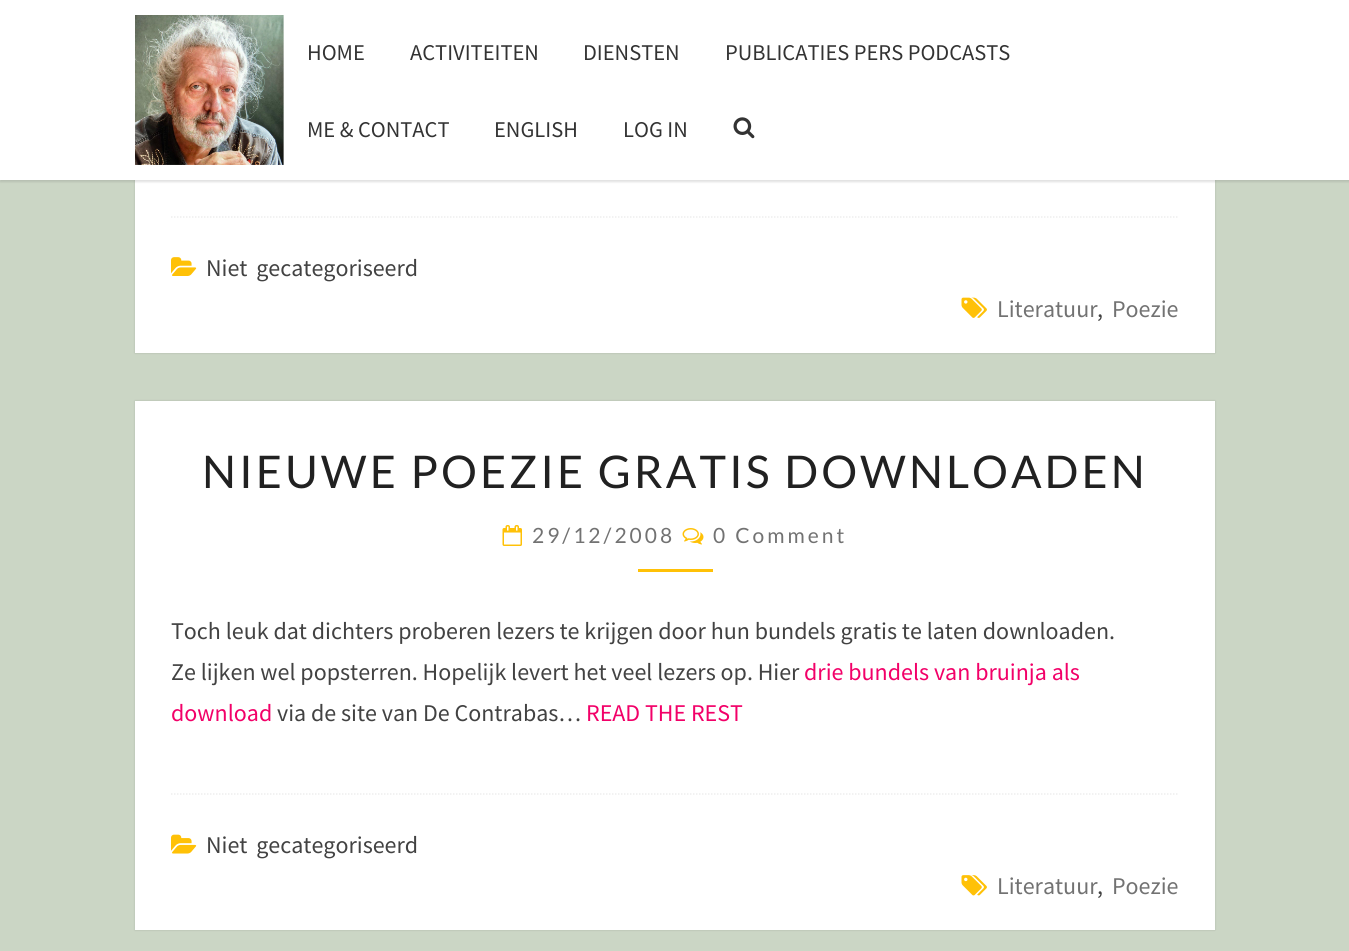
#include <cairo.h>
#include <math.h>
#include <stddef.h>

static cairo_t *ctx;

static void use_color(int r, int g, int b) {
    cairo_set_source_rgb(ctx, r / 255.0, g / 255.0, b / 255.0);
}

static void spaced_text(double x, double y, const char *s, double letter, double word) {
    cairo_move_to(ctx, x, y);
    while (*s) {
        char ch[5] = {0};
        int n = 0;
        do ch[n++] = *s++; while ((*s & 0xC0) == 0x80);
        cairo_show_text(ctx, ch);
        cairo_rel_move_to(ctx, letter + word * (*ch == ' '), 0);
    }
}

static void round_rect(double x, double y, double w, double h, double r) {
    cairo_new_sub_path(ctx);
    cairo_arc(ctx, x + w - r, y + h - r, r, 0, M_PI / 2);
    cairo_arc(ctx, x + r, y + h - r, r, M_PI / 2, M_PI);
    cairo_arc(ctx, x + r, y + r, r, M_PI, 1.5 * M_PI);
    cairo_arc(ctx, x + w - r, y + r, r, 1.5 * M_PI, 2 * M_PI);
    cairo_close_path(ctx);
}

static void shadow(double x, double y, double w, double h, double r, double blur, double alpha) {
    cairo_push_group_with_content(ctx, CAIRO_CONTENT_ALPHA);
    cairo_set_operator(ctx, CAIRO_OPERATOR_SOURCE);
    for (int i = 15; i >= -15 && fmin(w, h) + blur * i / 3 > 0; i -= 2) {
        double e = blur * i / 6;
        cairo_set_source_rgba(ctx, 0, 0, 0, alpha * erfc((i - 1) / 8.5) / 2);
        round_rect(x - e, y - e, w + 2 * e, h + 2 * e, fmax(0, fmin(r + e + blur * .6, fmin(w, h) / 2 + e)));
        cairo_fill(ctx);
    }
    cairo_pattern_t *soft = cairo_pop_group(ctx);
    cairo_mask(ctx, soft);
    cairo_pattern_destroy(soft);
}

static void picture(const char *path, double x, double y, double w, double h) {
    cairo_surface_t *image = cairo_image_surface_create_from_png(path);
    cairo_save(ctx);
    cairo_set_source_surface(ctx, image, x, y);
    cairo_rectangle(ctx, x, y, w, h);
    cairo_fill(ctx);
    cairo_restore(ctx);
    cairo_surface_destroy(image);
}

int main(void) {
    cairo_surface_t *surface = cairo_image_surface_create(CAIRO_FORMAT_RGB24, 1349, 951);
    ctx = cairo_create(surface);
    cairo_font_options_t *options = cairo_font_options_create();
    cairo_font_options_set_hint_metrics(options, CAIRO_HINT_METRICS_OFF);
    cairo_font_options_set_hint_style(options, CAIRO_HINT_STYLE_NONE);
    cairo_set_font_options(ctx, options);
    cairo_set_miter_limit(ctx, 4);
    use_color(203, 214, 197);
    cairo_paint(ctx);
    use_color(0, 0, 0);
    shadow(135, -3, 1080, 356, 0, 1, 0.15);
    use_color(255, 255, 255);
    cairo_rectangle(ctx, 135, 180, 1080, 173);
    cairo_fill(ctx);
    use_color(100, 100, 100);
    shadow(0, 2, 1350, 180, 0, 1, 0.2);
    use_color(255, 255, 255);
    cairo_rectangle(ctx, 0, 0, 1349, 180);
    cairo_fill(ctx);
    picture("img1.png", 135, 15, 149, 150);
    cairo_select_font_face(ctx, "Source Sans Pro", CAIRO_FONT_SLANT_NORMAL, CAIRO_FONT_WEIGHT_NORMAL);
    cairo_set_font_size(ctx, 22.5);
    use_color(51, 51, 51);
    cairo_move_to(ctx, 307, 60);
    cairo_show_text(ctx, "HOME");
    cairo_move_to(ctx, 410, 60);
    cairo_show_text(ctx, "ACTIVITEITEN");
    cairo_move_to(ctx, 583, 60);
    cairo_show_text(ctx, "DIENSTEN");
    cairo_move_to(ctx, 725, 60);
    cairo_show_text(ctx, "PUBLICATIES PERS PODCASTS");
    cairo_move_to(ctx, 307, 137);
    cairo_show_text(ctx, "ME & CONTACT");
    cairo_move_to(ctx, 494, 137);
    cairo_show_text(ctx, "ENGLISH");
    cairo_move_to(ctx, 623, 137);
    cairo_show_text(ctx, "LOG IN");
    picture("img2.png", 733, 117, 22, 22);
    cairo_new_path(ctx);
    cairo_move_to(ctx, 171, 217);
    cairo_line_to(ctx, 1179, 217);
    use_color(238, 238, 238);
    cairo_set_line_width(ctx, 1.5);
    cairo_set_dash(ctx, (double[]){1.5, 1.5}, 2, 0);
    cairo_stroke(ctx);
    picture("img3.png", 171, 257, 26, 19);
    cairo_set_font_size(ctx, 24);
    use_color(66, 66, 66);
    spaced_text(206, 276, "Niet gecategoriseerd", 0, 4);
    picture("img4.png", 961, 297, 26, 21);
    use_color(114, 114, 114);
    cairo_move_to(ctx, 997, 317);
    cairo_show_text(ctx, "Literatuur");
    use_color(66, 66, 66);
    cairo_move_to(ctx, 1097, 317);
    cairo_show_text(ctx, ",");
    use_color(114, 114, 114);
    cairo_move_to(ctx, 1112, 317);
    cairo_show_text(ctx, "Poezie");
    use_color(0, 0, 0);
    shadow(135, 401, 1080, 529, 0, 1, 0.15);
    use_color(255, 255, 255);
    cairo_rectangle(ctx, 135, 401, 1080, 529);
    cairo_fill(ctx);
    cairo_select_font_face(ctx, "Lato", CAIRO_FONT_SLANT_NORMAL, CAIRO_FONT_WEIGHT_NORMAL);
    cairo_set_font_size(ctx, 45);
    use_color(33, 33, 33);
    spaced_text(202, 488, "NIEUWE POEZIE GRATIS DOWNLOADEN", 3, 0);
    picture("img5.png", 502, 525, 20, 21);
    cairo_set_font_size(ctx, 21);
    use_color(114, 114, 114);
    spaced_text(532, 543, "29/12/2008", 3, 0);
    picture("img6.png", 682, 528, 22, 17);
    spaced_text(713, 543, "0 Comment", 3, 0);
    use_color(255, 193, 7);
    cairo_rectangle(ctx, 638, 569, 75, 3);
    cairo_fill(ctx);
    cairo_select_font_face(ctx, "Source Sans Pro", CAIRO_FONT_SLANT_NORMAL, CAIRO_FONT_WEIGHT_NORMAL);
    cairo_set_font_size(ctx, 24);
    use_color(66, 66, 66);
    cairo_move_to(ctx, 171, 639);
    cairo_show_text(ctx, "Toch leuk dat dichters proberen lezers te krijgen door hun bundels gratis te laten downloaden.");
    cairo_move_to(ctx, 171, 680);
    cairo_show_text(ctx, "Ze lijken wel popsterren. Hopelijk levert het veel lezers op. Hier");
    use_color(242, 0, 104);
    cairo_move_to(ctx, 804, 680);
    cairo_show_text(ctx, "drie bundels van bruinja als");
    cairo_move_to(ctx, 171, 721);
    cairo_show_text(ctx, "download");
    use_color(66, 66, 66);
    cairo_move_to(ctx, 277, 721);
    cairo_show_text(ctx, "via de site van De Contrabas…");
    use_color(242, 0, 104);
    cairo_move_to(ctx, 586, 721);
    cairo_show_text(ctx, "READ THE REST");
    cairo_new_path(ctx);
    cairo_move_to(ctx, 171, 794);
    cairo_line_to(ctx, 1179, 794);
    use_color(238, 238, 238);
    cairo_stroke(ctx);
    picture("img7.png", 171, 834, 26, 20);
    use_color(66, 66, 66);
    spaced_text(206, 853, "Niet gecategoriseerd", 0, 4);
    picture("img8.png", 961, 875, 26, 21);
    use_color(114, 114, 114);
    cairo_move_to(ctx, 997, 894);
    cairo_show_text(ctx, "Literatuur");
    use_color(66, 66, 66);
    cairo_move_to(ctx, 1097, 894);
    cairo_show_text(ctx, ",");
    use_color(114, 114, 114);
    cairo_move_to(ctx, 1112, 894);
    cairo_show_text(ctx, "Poezie");
    cairo_surface_write_to_png(surface, "result.png");
    cairo_font_options_destroy(options);
    cairo_destroy(ctx);
    cairo_surface_destroy(surface);
    return 0;
}
